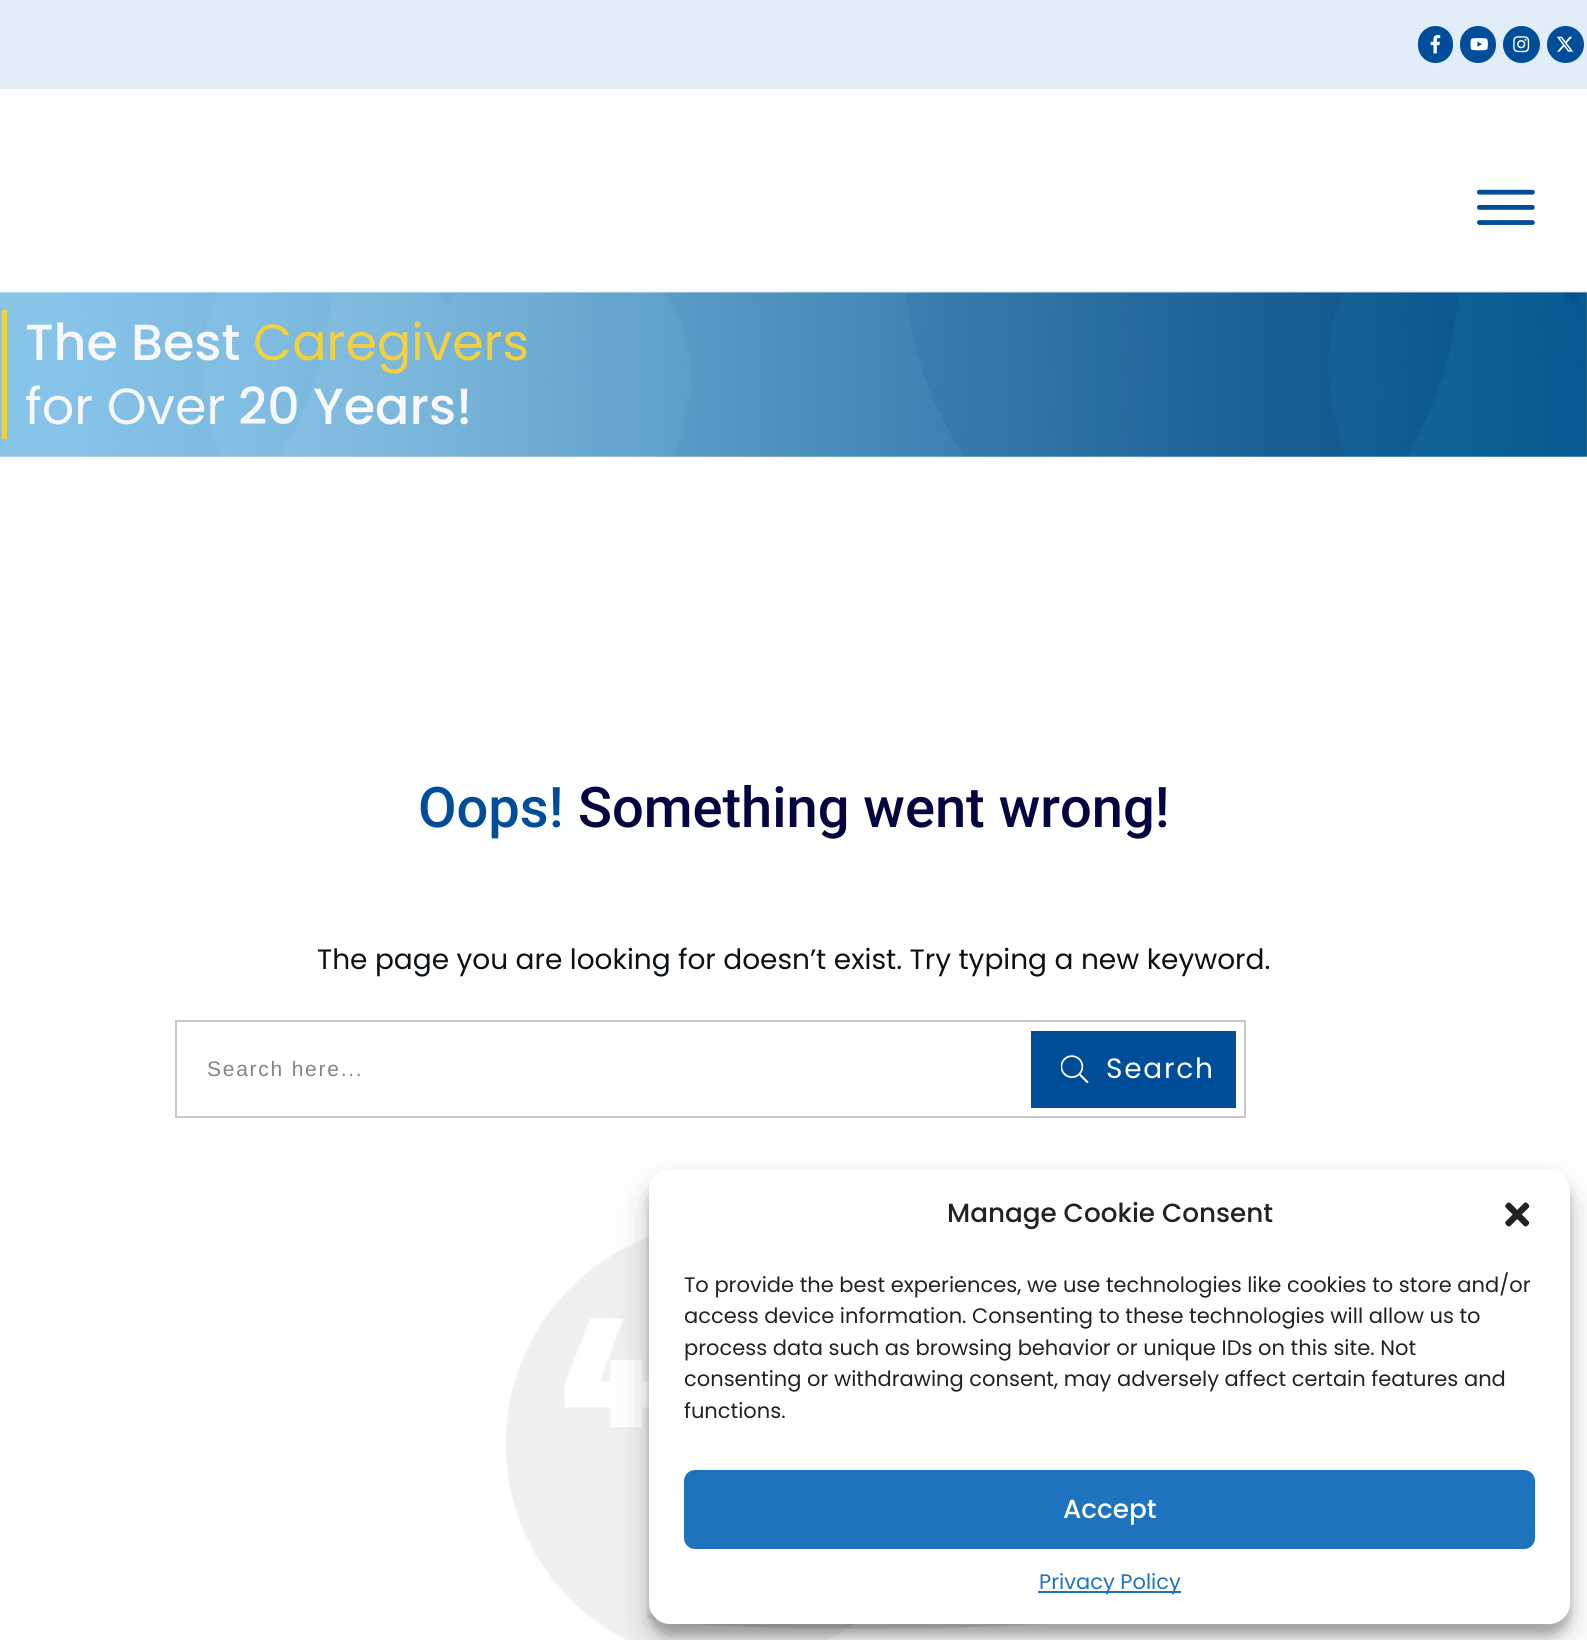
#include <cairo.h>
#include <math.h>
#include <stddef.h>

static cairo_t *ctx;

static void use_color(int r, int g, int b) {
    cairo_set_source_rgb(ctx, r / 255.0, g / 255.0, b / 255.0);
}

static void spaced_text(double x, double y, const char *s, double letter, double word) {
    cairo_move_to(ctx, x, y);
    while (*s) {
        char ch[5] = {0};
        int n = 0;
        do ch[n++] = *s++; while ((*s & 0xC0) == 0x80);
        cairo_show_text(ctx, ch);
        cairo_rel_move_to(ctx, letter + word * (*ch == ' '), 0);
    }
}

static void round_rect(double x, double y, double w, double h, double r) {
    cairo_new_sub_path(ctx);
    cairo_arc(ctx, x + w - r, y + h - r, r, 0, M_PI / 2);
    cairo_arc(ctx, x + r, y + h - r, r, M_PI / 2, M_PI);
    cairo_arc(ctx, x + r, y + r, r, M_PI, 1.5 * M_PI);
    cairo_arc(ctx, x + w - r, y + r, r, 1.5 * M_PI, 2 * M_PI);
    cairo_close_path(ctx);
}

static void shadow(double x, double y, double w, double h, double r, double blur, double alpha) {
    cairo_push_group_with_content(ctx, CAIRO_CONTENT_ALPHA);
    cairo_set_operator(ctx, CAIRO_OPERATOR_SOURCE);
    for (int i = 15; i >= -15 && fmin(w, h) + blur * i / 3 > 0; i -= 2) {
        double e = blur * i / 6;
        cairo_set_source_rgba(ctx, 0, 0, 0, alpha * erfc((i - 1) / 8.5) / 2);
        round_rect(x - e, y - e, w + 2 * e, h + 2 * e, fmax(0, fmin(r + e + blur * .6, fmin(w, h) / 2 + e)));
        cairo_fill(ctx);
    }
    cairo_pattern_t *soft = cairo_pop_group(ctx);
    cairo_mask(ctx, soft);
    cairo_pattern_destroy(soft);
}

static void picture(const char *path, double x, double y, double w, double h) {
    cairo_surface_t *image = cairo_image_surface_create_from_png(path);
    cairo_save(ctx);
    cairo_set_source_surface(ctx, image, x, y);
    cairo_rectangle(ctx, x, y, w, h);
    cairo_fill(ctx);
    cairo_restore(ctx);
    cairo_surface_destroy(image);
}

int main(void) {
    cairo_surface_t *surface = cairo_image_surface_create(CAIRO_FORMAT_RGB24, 1587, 1640);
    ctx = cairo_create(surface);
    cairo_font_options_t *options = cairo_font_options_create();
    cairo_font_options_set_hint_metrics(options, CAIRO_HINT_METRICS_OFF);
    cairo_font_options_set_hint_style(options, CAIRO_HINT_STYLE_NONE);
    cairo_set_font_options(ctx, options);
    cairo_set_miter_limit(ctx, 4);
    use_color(255, 255, 255);
    cairo_paint(ctx);
    use_color(225, 237, 249);
    cairo_rectangle(ctx, 0, 0, 1587, 89);
    cairo_fill(ctx);
    use_color(0, 77, 153);
    round_rect(1418, 26, 35, 37, 17.5);
    cairo_fill(ctx);
    picture("img1.png", 1430, 35, 11, 19);
    round_rect(1460, 26, 36, 37, 18);
    cairo_fill(ctx);
    picture("img2.png", 1470, 38, 18, 13);
    cairo_arc(ctx, 1521.5, 44.5, 18.5, 0, 2 * M_PI);
    cairo_fill(ctx);
    picture("img3.png", 1513, 36, 17, 17);
    cairo_arc(ctx, 1565.5, 44.5, 18.5, 0, 2 * M_PI);
    cairo_fill(ctx);
    picture("img4.png", 1556, 36, 18, 16);
    picture("img5.png", 1477, 189, 58, 36);
    picture("img6.png", 0, 291, 1587, 167);
    use_color(243, 208, 62);
    cairo_rectangle(ctx, 2, 310, 5, 129);
    cairo_fill(ctx);
    cairo_select_font_face(ctx, "Poppins Medium", CAIRO_FONT_SLANT_NORMAL, CAIRO_FONT_WEIGHT_NORMAL);
    cairo_set_font_size(ctx, 50.75);
    use_color(248, 248, 248);
    cairo_move_to(ctx, 25, 360);
    cairo_show_text(ctx, "The Best");
    cairo_select_font_face(ctx, "Poppins", CAIRO_FONT_SLANT_NORMAL, CAIRO_FONT_WEIGHT_NORMAL);
    use_color(243, 208, 62);
    cairo_move_to(ctx, 253, 360);
    cairo_show_text(ctx, "Caregivers");
    use_color(248, 248, 248);
    cairo_move_to(ctx, 25, 424);
    cairo_show_text(ctx, "for Over");
    cairo_select_font_face(ctx, "Poppins Medium", CAIRO_FONT_SLANT_NORMAL, CAIRO_FONT_WEIGHT_NORMAL);
    cairo_move_to(ctx, 238, 424);
    cairo_show_text(ctx, "20 Years!");
    cairo_select_font_face(ctx, "Roboto Medium", CAIRO_FONT_SLANT_NORMAL, CAIRO_FONT_WEIGHT_NORMAL);
    cairo_set_font_size(ctx, 56);
    use_color(0, 77, 153);
    cairo_move_to(ctx, 418, 827);
    cairo_show_text(ctx, "Oops!");
    use_color(5, 5, 65);
    cairo_move_to(ctx, 578, 827);
    cairo_show_text(ctx, "Something went wrong!");
    cairo_select_font_face(ctx, "Poppins", CAIRO_FONT_SLANT_NORMAL, CAIRO_FONT_WEIGHT_NORMAL);
    cairo_set_font_size(ctx, 28);
    use_color(12, 17, 21);
    cairo_move_to(ctx, 317, 969);
    cairo_show_text(ctx, "The page you are looking for doesn’t exist. Try typing a new keyword.");
    cairo_rectangle(ctx, 176, 1021, 1069, 96);
    use_color(199, 199, 199);
    cairo_stroke(ctx);
    cairo_select_font_face(ctx, "Liberation Sans", CAIRO_FONT_SLANT_NORMAL, CAIRO_FONT_WEIGHT_NORMAL);
    cairo_set_font_size(ctx, 21);
    use_color(133, 133, 133);
    spaced_text(207, 1076, "Search here...", 1.75, 0);
    use_color(0, 77, 153);
    cairo_rectangle(ctx, 1031, 1031, 205, 77);
    cairo_fill(ctx);
    picture("img7.png", 1061, 1055, 28, 28);
    cairo_select_font_face(ctx, "Poppins", CAIRO_FONT_SLANT_NORMAL, CAIRO_FONT_WEIGHT_NORMAL);
    cairo_set_font_size(ctx, 28);
    use_color(255, 255, 255);
    spaced_text(1106, 1078, "Search", 1.75, 0);
    picture("img8.png", 506, 1236, 541, 404);
    use_color(0, 0, 0);
    shadow(649, 1180, 921, 455, 21, 5, 0.23);
    shadow(649, 1187, 921, 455, 21, 17.5, 0.19);
    use_color(255, 255, 255);
    round_rect(649, 1169, 921, 455, 21);
    cairo_fill(ctx);
    cairo_select_font_face(ctx, "Poppins Medium", CAIRO_FONT_SLANT_NORMAL, CAIRO_FONT_WEIGHT_NORMAL);
    cairo_set_font_size(ctx, 26.25);
    use_color(34, 34, 34);
    cairo_move_to(ctx, 947, 1222);
    cairo_show_text(ctx, "Manage Cookie Consent");
    picture("img9.png", 1505, 1202, 25, 25);
    cairo_select_font_face(ctx, "Poppins", CAIRO_FONT_SLANT_NORMAL, CAIRO_FONT_WEIGHT_NORMAL);
    cairo_set_font_size(ctx, 21);
    cairo_move_to(ctx, 684, 1292);
    cairo_show_text(ctx, "To provide the best experiences, we use technologies like cookies to store and/or");
    cairo_move_to(ctx, 684, 1323);
    cairo_show_text(ctx, "access device information. Consenting to these technologies will allow us to");
    cairo_move_to(ctx, 684, 1355);
    cairo_show_text(ctx, "process data such as browsing behavior or unique IDs on this site. Not");
    cairo_move_to(ctx, 684, 1386);
    cairo_show_text(ctx, "consenting or withdrawing consent, may adversely affect certain features and");
    cairo_move_to(ctx, 684, 1418);
    cairo_show_text(ctx, "functions.");
    use_color(30, 115, 190);
    round_rect(685, 1471, 849, 77, 10);
    cairo_fill_preserve(ctx);
    cairo_stroke(ctx);
    cairo_select_font_face(ctx, "Poppins Medium", CAIRO_FONT_SLANT_NORMAL, CAIRO_FONT_WEIGHT_NORMAL);
    cairo_set_font_size(ctx, 26.25);
    use_color(255, 255, 255);
    cairo_move_to(ctx, 1063, 1518);
    cairo_show_text(ctx, "Accept");
    use_color(30, 115, 190);
    cairo_rectangle(ctx, 1038, 1591, 143, 2);
    cairo_fill(ctx);
    cairo_select_font_face(ctx, "Poppins", CAIRO_FONT_SLANT_NORMAL, CAIRO_FONT_WEIGHT_NORMAL);
    cairo_set_font_size(ctx, 21);
    cairo_move_to(ctx, 1039, 1589);
    cairo_show_text(ctx, "Privacy Policy");
    cairo_surface_write_to_png(surface, "result.png");
    cairo_font_options_destroy(options);
    cairo_destroy(ctx);
    cairo_surface_destroy(surface);
    return 0;
}
